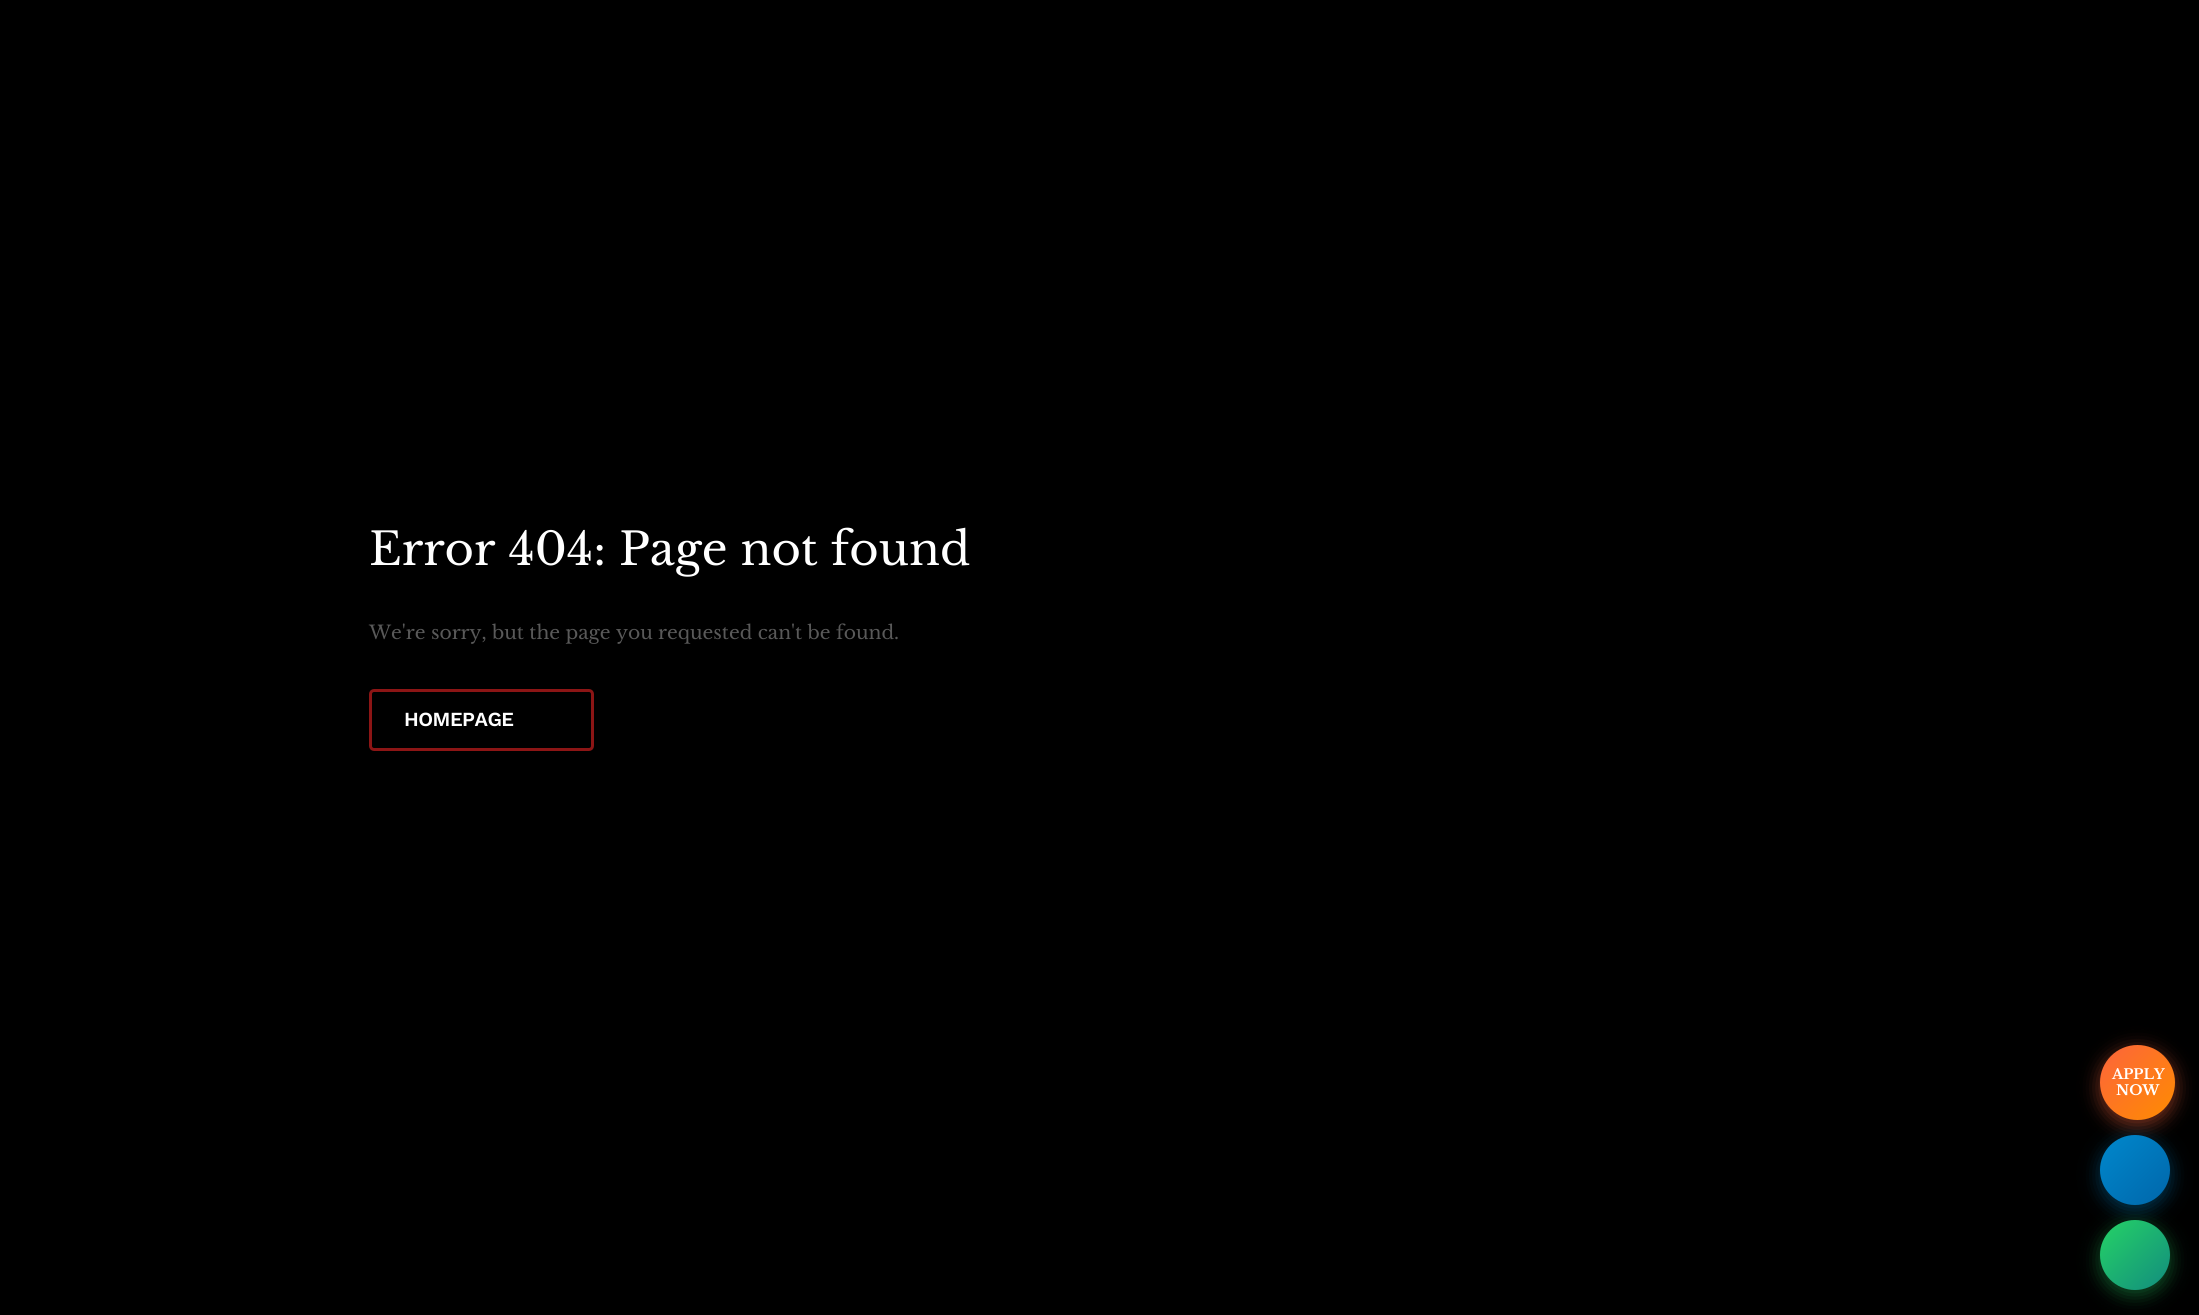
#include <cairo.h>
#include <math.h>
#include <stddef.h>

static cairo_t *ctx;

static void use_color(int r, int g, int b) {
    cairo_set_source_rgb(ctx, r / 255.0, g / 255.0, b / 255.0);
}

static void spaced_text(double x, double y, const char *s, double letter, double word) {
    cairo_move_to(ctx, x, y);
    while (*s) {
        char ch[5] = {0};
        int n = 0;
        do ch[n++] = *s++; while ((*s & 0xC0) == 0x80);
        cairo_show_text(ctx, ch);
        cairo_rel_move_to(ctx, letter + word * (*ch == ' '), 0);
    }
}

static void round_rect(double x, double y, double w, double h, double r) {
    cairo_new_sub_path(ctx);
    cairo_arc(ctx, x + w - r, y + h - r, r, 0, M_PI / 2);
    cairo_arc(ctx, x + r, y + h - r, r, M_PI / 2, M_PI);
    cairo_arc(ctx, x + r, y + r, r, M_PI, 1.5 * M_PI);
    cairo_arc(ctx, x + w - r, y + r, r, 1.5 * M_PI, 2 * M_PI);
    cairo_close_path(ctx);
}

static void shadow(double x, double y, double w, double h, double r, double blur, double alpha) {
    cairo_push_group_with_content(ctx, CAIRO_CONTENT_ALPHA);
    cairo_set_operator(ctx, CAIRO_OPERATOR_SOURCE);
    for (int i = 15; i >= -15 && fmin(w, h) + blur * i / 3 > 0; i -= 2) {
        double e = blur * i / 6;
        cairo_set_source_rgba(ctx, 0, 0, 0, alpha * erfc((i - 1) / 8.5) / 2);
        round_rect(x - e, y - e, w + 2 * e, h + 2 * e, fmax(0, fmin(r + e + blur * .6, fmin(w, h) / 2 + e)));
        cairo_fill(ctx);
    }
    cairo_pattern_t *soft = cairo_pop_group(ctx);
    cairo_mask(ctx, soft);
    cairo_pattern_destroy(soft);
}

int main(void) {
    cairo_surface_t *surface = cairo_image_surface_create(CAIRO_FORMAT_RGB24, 2199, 1315);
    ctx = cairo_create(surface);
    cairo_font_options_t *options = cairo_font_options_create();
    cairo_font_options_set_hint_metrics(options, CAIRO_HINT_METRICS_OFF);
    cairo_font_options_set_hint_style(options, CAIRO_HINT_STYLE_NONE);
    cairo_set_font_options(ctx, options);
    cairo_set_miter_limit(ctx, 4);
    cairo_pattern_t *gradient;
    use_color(0, 0, 0);
    cairo_paint(ctx);
    cairo_select_font_face(ctx, "Libre Baskerville", CAIRO_FONT_SLANT_NORMAL, CAIRO_FONT_WEIGHT_NORMAL);
    cairo_set_font_size(ctx, 45);
    use_color(255, 255, 255);
    cairo_move_to(ctx, 369, 565);
    cairo_show_text(ctx, "Error 404: Page not found");
    cairo_set_font_size(ctx, 18.75);
    use_color(89, 89, 89);
    cairo_move_to(ctx, 369, 639);
    cairo_show_text(ctx, "We're sorry, but the page you requested can't be found.");
    round_rect(370.5, 690.5, 222, 59, 3.5);
    use_color(140, 21, 21);
    cairo_set_line_width(ctx, 3);
    cairo_stroke(ctx);
    cairo_select_font_face(ctx, "Work Sans SemiBold", CAIRO_FONT_SLANT_NORMAL, CAIRO_FONT_WEIGHT_NORMAL);
    cairo_set_font_size(ctx, 20);
    use_color(255, 255, 255);
    spaced_text(404, 726, "HOMEPAGE", -0.5, 0);
    use_color(252, 100, 60);
    shadow(2100, 1050, 75, 75, 37.5, 9.5, 0.5);
    gradient = cairo_pattern_create_linear(2100, 1045, 2175, 1120);
    cairo_pattern_add_color_stop_rgba(gradient, 0, 0.988, 0.392, 0.235, 1);
    cairo_pattern_add_color_stop_rgba(gradient, 1, 1, 0.549, 0, 1);
    cairo_set_source(ctx, gradient);
    cairo_pattern_destroy(gradient);
    cairo_arc(ctx, 2137.5, 1082.5, 37.5, 0, 2 * M_PI);
    cairo_fill(ctx);
    cairo_select_font_face(ctx, "Libre Baskerville", CAIRO_FONT_SLANT_NORMAL, CAIRO_FONT_WEIGHT_BOLD);
    cairo_set_font_size(ctx, 14);
    use_color(255, 255, 255);
    cairo_move_to(ctx, 2112, 1079);
    cairo_show_text(ctx, "APPLY");
    cairo_move_to(ctx, 2116, 1095);
    cairo_show_text(ctx, "NOW");
    use_color(0, 136, 204);
    shadow(2100, 1140, 70, 70, 35, 9.5, 0.4);
    gradient = cairo_pattern_create_linear(2100, 1135, 2170, 1205);
    cairo_pattern_add_color_stop_rgba(gradient, 0, 0, 0.533, 0.8, 1);
    cairo_pattern_add_color_stop_rgba(gradient, 1, 0, 0.4, 0.667, 1);
    cairo_set_source(ctx, gradient);
    cairo_pattern_destroy(gradient);
    cairo_arc(ctx, 2135, 1170, 35, 0, 2 * M_PI);
    cairo_fill(ctx);
    use_color(37, 211, 102);
    shadow(2100, 1225, 70, 70, 35, 9.5, 0.4);
    gradient = cairo_pattern_create_linear(2100, 1220, 2170, 1290);
    cairo_pattern_add_color_stop_rgba(gradient, 0, 0.145, 0.827, 0.4, 1);
    cairo_pattern_add_color_stop_rgba(gradient, 1, 0.071, 0.549, 0.494, 1);
    cairo_set_source(ctx, gradient);
    cairo_pattern_destroy(gradient);
    cairo_arc(ctx, 2135, 1255, 35, 0, 2 * M_PI);
    cairo_fill(ctx);
    cairo_surface_write_to_png(surface, "result.png");
    cairo_font_options_destroy(options);
    cairo_destroy(ctx);
    cairo_surface_destroy(surface);
    return 0;
}
